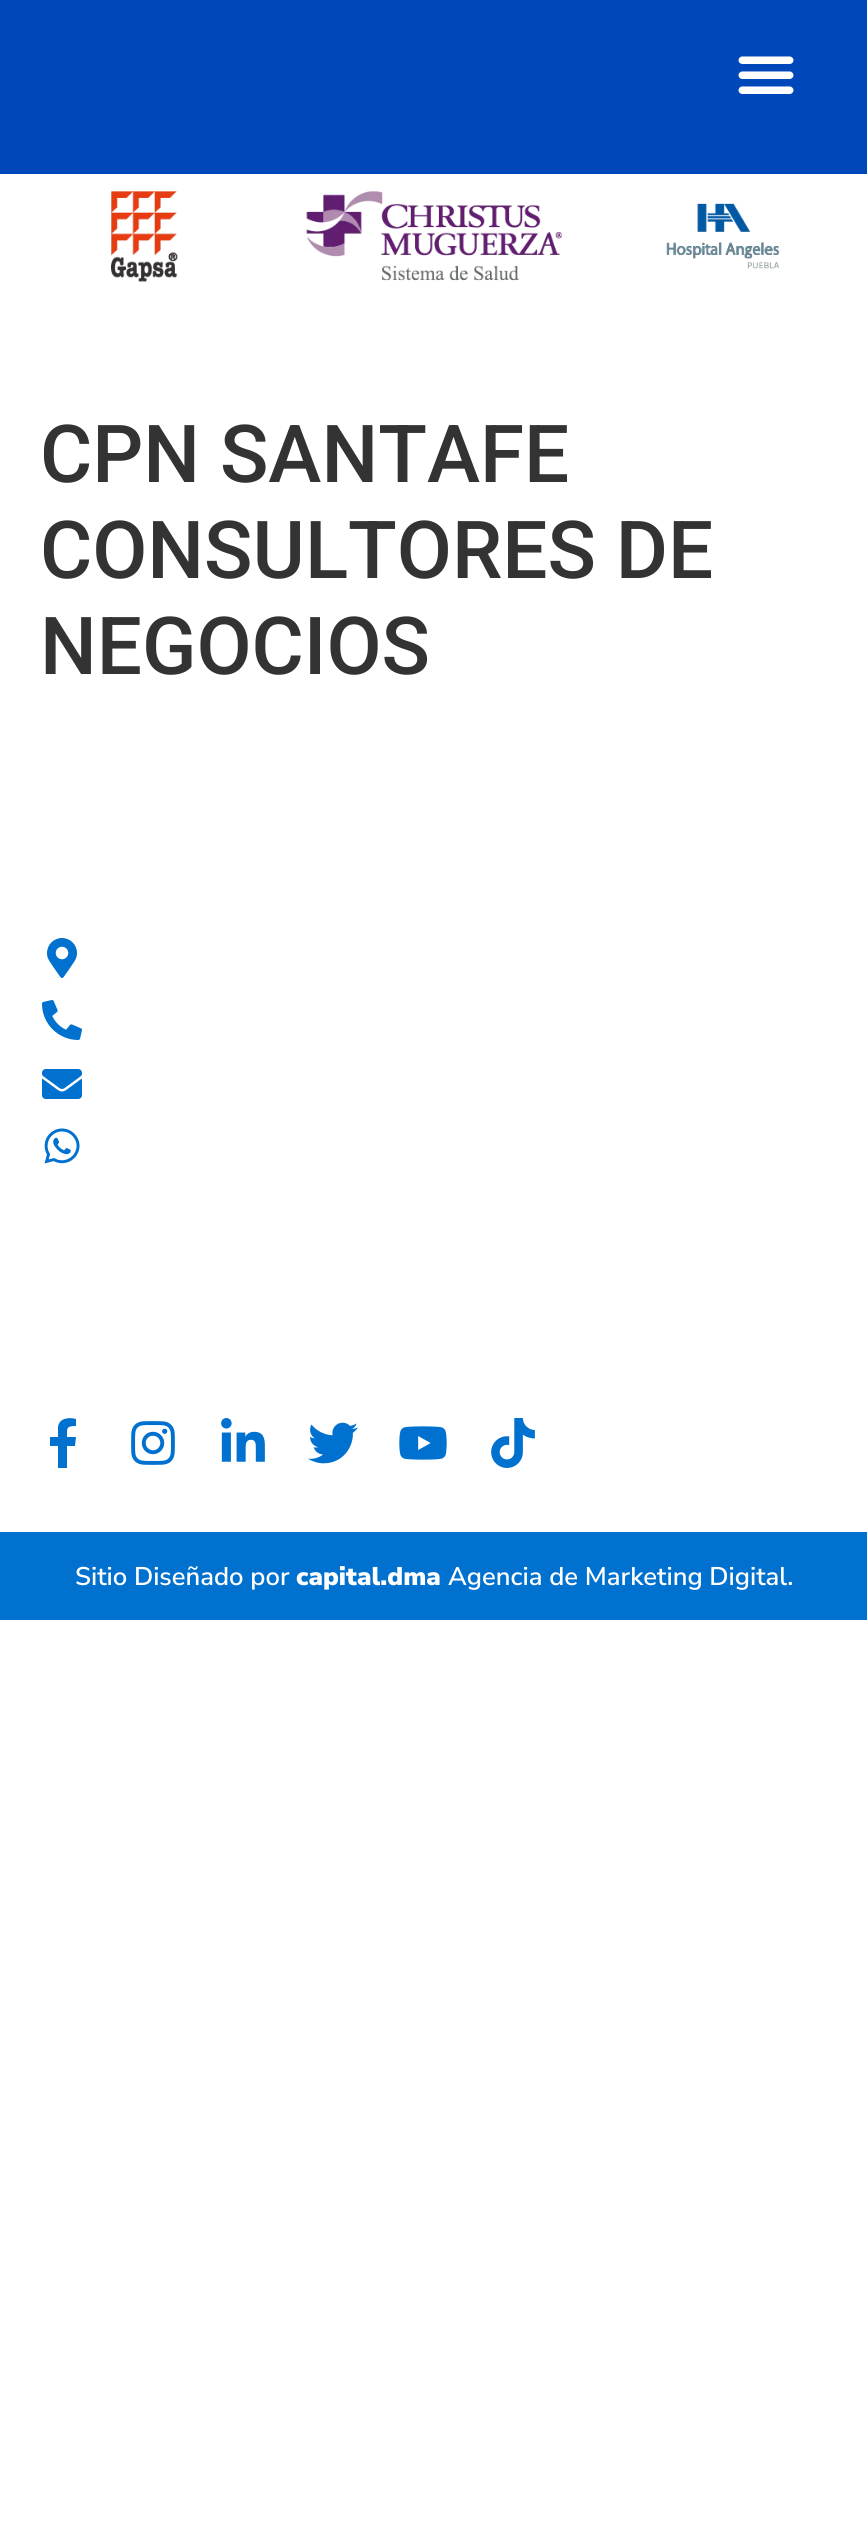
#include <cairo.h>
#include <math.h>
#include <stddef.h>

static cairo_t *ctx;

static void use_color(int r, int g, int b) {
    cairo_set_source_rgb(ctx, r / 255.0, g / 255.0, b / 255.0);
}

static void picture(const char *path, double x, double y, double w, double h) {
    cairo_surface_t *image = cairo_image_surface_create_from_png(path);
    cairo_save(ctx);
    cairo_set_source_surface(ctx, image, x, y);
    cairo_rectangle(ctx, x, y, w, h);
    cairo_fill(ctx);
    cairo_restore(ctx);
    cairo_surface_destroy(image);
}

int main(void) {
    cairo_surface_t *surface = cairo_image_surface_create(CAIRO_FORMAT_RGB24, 867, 2522);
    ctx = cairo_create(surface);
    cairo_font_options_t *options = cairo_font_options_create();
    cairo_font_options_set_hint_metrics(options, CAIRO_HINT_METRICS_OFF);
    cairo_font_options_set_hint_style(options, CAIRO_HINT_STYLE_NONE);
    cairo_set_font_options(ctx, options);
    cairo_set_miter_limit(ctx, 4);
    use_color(255, 255, 255);
    cairo_paint(ctx);
    use_color(0, 71, 186);
    cairo_rectangle(ctx, 0, 0, 867, 174);
    cairo_fill(ctx);
    picture("img1.png", 738, 56, 56, 38);
    picture("img2.png", 111, 191, 67, 91);
    picture("img3.png", 306, 191, 257, 90);
    picture("img4.png", 666, 203, 114, 66);
    cairo_select_font_face(ctx, "Roboto Medium", CAIRO_FONT_SLANT_NORMAL, CAIRO_FONT_WEIGHT_NORMAL);
    cairo_set_font_size(ctx, 80);
    use_color(51, 51, 51);
    cairo_move_to(ctx, 40, 482);
    cairo_show_text(ctx, "CPN SANTAFE");
    cairo_move_to(ctx, 40, 578);
    cairo_show_text(ctx, "CONSULTORES DE");
    cairo_move_to(ctx, 40, 674);
    cairo_show_text(ctx, "NEGOCIOS");
    picture("img5.png", 47, 938, 30, 40);
    picture("img6.png", 42, 1000, 40, 40);
    picture("img7.png", 42, 1069, 40, 30);
    picture("img8.png", 44, 1128, 36, 36);
    use_color(0, 113, 206);
    cairo_new_path(ctx);
    cairo_move_to(ctx, 75, 1446);
    cairo_line_to(ctx, 76, 1437);
    cairo_line_to(ctx, 67, 1437);
    cairo_curve_to(ctx, 67, 1428, 66, 1426, 76, 1426);
    cairo_line_to(ctx, 76, 1419);
    cairo_curve_to(ctx, 69, 1417, 59, 1418, 58, 1427);
    cairo_line_to(ctx, 58, 1437);
    cairo_line_to(ctx, 50, 1437);
    cairo_line_to(ctx, 50, 1446);
    cairo_line_to(ctx, 58, 1446);
    cairo_line_to(ctx, 58, 1468);
    cairo_line_to(ctx, 67, 1468);
    cairo_line_to(ctx, 67, 1446);
    cairo_close_path(ctx);
    cairo_fill(ctx);
    picture("img9.png", 131, 1421, 44, 44);
    picture("img10.png", 221, 1418, 44, 44);
    picture("img11.png", 308, 1422, 50, 42);
    picture("img12.png", 399, 1426, 48, 34);
    picture("img13.png", 491, 1418, 44, 50);
    cairo_rectangle(ctx, 0, 1532, 867, 88);
    cairo_fill(ctx);
    cairo_select_font_face(ctx, "Nunito Sans SemiBold", CAIRO_FONT_SLANT_NORMAL, CAIRO_FONT_WEIGHT_NORMAL);
    cairo_set_font_size(ctx, 25.6);
    use_color(255, 255, 255);
    cairo_move_to(ctx, 75, 1585);
    cairo_show_text(ctx, "Sitio Diseñado por");
    cairo_select_font_face(ctx, "Nunito Sans Black", CAIRO_FONT_SLANT_NORMAL, CAIRO_FONT_WEIGHT_NORMAL);
    cairo_move_to(ctx, 296, 1585);
    cairo_show_text(ctx, "capital.dma");
    cairo_select_font_face(ctx, "Nunito Sans SemiBold", CAIRO_FONT_SLANT_NORMAL, CAIRO_FONT_WEIGHT_NORMAL);
    cairo_move_to(ctx, 448, 1585);
    cairo_show_text(ctx, "Agencia de Marketing Digital.");
    cairo_surface_write_to_png(surface, "result.png");
    cairo_font_options_destroy(options);
    cairo_destroy(ctx);
    cairo_surface_destroy(surface);
    return 0;
}
